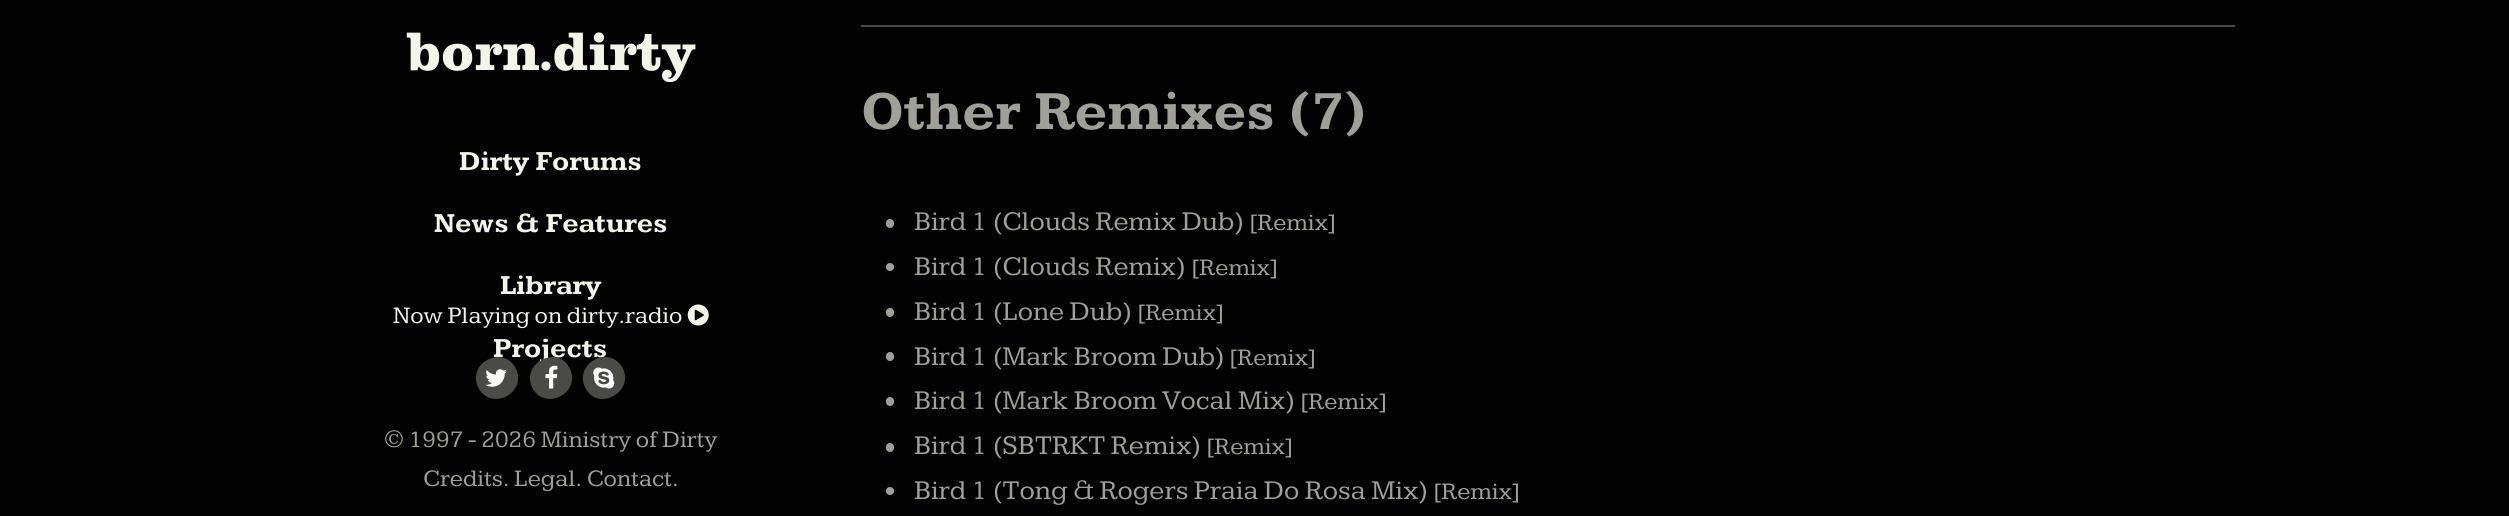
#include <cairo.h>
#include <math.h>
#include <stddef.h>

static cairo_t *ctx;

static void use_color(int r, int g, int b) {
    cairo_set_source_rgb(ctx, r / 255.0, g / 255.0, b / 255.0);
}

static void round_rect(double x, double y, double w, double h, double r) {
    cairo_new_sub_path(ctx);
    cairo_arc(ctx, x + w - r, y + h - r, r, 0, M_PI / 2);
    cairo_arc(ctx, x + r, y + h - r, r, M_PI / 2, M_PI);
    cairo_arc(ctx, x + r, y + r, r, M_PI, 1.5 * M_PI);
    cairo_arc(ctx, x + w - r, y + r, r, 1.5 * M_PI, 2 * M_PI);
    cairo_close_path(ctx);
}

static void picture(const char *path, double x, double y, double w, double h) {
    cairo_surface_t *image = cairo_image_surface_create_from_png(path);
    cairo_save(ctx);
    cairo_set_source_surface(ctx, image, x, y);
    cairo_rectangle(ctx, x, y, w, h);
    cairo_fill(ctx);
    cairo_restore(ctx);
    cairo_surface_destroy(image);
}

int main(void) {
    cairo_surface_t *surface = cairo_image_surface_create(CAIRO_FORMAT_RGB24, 2509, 516);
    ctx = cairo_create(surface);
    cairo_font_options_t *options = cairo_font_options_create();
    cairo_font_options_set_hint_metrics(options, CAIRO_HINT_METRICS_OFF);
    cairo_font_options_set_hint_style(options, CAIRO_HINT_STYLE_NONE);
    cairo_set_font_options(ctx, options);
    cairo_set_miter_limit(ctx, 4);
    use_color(2, 2, 2);
    cairo_paint(ctx);
    cairo_select_font_face(ctx, "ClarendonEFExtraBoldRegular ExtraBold", CAIRO_FONT_SLANT_NORMAL, CAIRO_FONT_WEIGHT_NORMAL);
    cairo_set_font_size(ctx, 56);
    use_color(244, 244, 233);
    cairo_move_to(ctx, 406, 70);
    cairo_show_text(ctx, "born.dirty");
    cairo_select_font_face(ctx, "Kameron", CAIRO_FONT_SLANT_NORMAL, CAIRO_FONT_WEIGHT_BOLD);
    cairo_set_font_size(ctx, 28);
    cairo_move_to(ctx, 459, 170);
    cairo_show_text(ctx, "Dirty Forums");
    cairo_move_to(ctx, 434, 232);
    cairo_show_text(ctx, "News & Features");
    cairo_move_to(ctx, 500, 294);
    cairo_show_text(ctx, "Library");
    cairo_move_to(ctx, 493, 357);
    cairo_show_text(ctx, "Projects");
    cairo_select_font_face(ctx, "Kameron", CAIRO_FONT_SLANT_NORMAL, CAIRO_FONT_WEIGHT_NORMAL);
    cairo_set_font_size(ctx, 24.5);
    cairo_move_to(ctx, 393, 323);
    cairo_show_text(ctx, "Now Playing on dirty.radio");
    picture("img1.png", 687, 304, 22, 22);
    use_color(74, 74, 71);
    cairo_new_path(ctx);
    cairo_move_to(ctx, 515, 367);
    cairo_curve_to(ctx, 529, 391, 493, 412, 479, 389);
    cairo_curve_to(ctx, 465, 365, 501, 344, 515, 367);
    cairo_close_path(ctx);
    cairo_fill(ctx);
    picture("img2.png", 485, 369, 22, 18);
    cairo_new_path(ctx);
    cairo_move_to(ctx, 569, 367);
    cairo_curve_to(ctx, 583, 391, 547, 412, 533, 389);
    cairo_curve_to(ctx, 519, 365, 556, 344, 569, 367);
    cairo_close_path(ctx);
    cairo_fill(ctx);
    picture("img3.png", 545, 365, 13, 24);
    cairo_new_path(ctx);
    cairo_move_to(ctx, 622, 367);
    cairo_curve_to(ctx, 636, 391, 599, 412, 586, 389);
    cairo_curve_to(ctx, 572, 365, 608, 344, 622, 367);
    cairo_close_path(ctx);
    cairo_fill(ctx);
    picture("img4.png", 593, 367, 22, 22);
    use_color(160, 160, 152);
    cairo_move_to(ctx, 384, 447);
    cairo_show_text(ctx, "© 1997 - 2026 Ministry of Dirty");
    cairo_move_to(ctx, 423, 486);
    cairo_show_text(ctx, "Credits. Legal. Contact.");
    use_color(74, 74, 71);
    cairo_rectangle(ctx, 861, 25, 1374, 2);
    cairo_fill(ctx);
    cairo_select_font_face(ctx, "Kameron", CAIRO_FONT_SLANT_NORMAL, CAIRO_FONT_WEIGHT_BOLD);
    cairo_set_font_size(ctx, 56);
    use_color(160, 160, 152);
    cairo_move_to(ctx, 861, 129);
    cairo_show_text(ctx, "Other Remixes (7)");
    round_rect(886, 219, 8, 9, 4);
    cairo_fill(ctx);
    cairo_select_font_face(ctx, "Kameron", CAIRO_FONT_SLANT_NORMAL, CAIRO_FONT_WEIGHT_NORMAL);
    cairo_set_font_size(ctx, 28);
    cairo_move_to(ctx, 914, 230);
    cairo_show_text(ctx, "Bird 1 (Clouds Remix Dub)");
    cairo_set_font_size(ctx, 24.5);
    cairo_move_to(ctx, 1249, 230);
    cairo_show_text(ctx, "[Remix]");
    cairo_new_path(ctx);
    cairo_arc(ctx, 890, 267, 4, 0, 2 * M_PI);
    cairo_fill(ctx);
    cairo_set_font_size(ctx, 28);
    cairo_move_to(ctx, 914, 275);
    cairo_show_text(ctx, "Bird 1 (Clouds Remix)");
    cairo_set_font_size(ctx, 24.5);
    cairo_move_to(ctx, 1191, 275);
    cairo_show_text(ctx, "[Remix]");
    round_rect(886, 308, 8, 9, 4);
    cairo_fill(ctx);
    cairo_set_font_size(ctx, 28);
    cairo_move_to(ctx, 914, 320);
    cairo_show_text(ctx, "Bird 1 (Lone Dub)");
    cairo_set_font_size(ctx, 24.5);
    cairo_move_to(ctx, 1137, 320);
    cairo_show_text(ctx, "[Remix]");
    round_rect(886, 352, 8, 9, 4);
    cairo_fill(ctx);
    cairo_set_font_size(ctx, 28);
    cairo_move_to(ctx, 914, 365);
    cairo_show_text(ctx, "Bird 1 (Mark Broom Dub)");
    cairo_set_font_size(ctx, 24.5);
    cairo_move_to(ctx, 1229, 365);
    cairo_show_text(ctx, "[Remix]");
    round_rect(886, 397, 8, 9, 4);
    cairo_fill(ctx);
    cairo_set_font_size(ctx, 28);
    cairo_move_to(ctx, 914, 409);
    cairo_show_text(ctx, "Bird 1 (Mark Broom Vocal Mix)");
    cairo_set_font_size(ctx, 24.5);
    cairo_move_to(ctx, 1300, 409);
    cairo_show_text(ctx, "[Remix]");
    round_rect(886, 443, 8, 9, 4);
    cairo_fill(ctx);
    cairo_set_font_size(ctx, 28);
    cairo_move_to(ctx, 914, 454);
    cairo_show_text(ctx, "Bird 1 (SBTRKT Remix)");
    cairo_set_font_size(ctx, 24.5);
    cairo_move_to(ctx, 1206, 454);
    cairo_show_text(ctx, "[Remix]");
    cairo_new_path(ctx);
    cairo_arc(ctx, 890, 491, 4, 0, 2 * M_PI);
    cairo_fill(ctx);
    cairo_set_font_size(ctx, 28);
    cairo_move_to(ctx, 914, 499);
    cairo_show_text(ctx, "Bird 1 (Tong & Rogers Praia Do Rosa Mix)");
    cairo_set_font_size(ctx, 24.5);
    cairo_move_to(ctx, 1433, 499);
    cairo_show_text(ctx, "[Remix]");
    cairo_surface_write_to_png(surface, "result.png");
    cairo_font_options_destroy(options);
    cairo_destroy(ctx);
    cairo_surface_destroy(surface);
    return 0;
}
